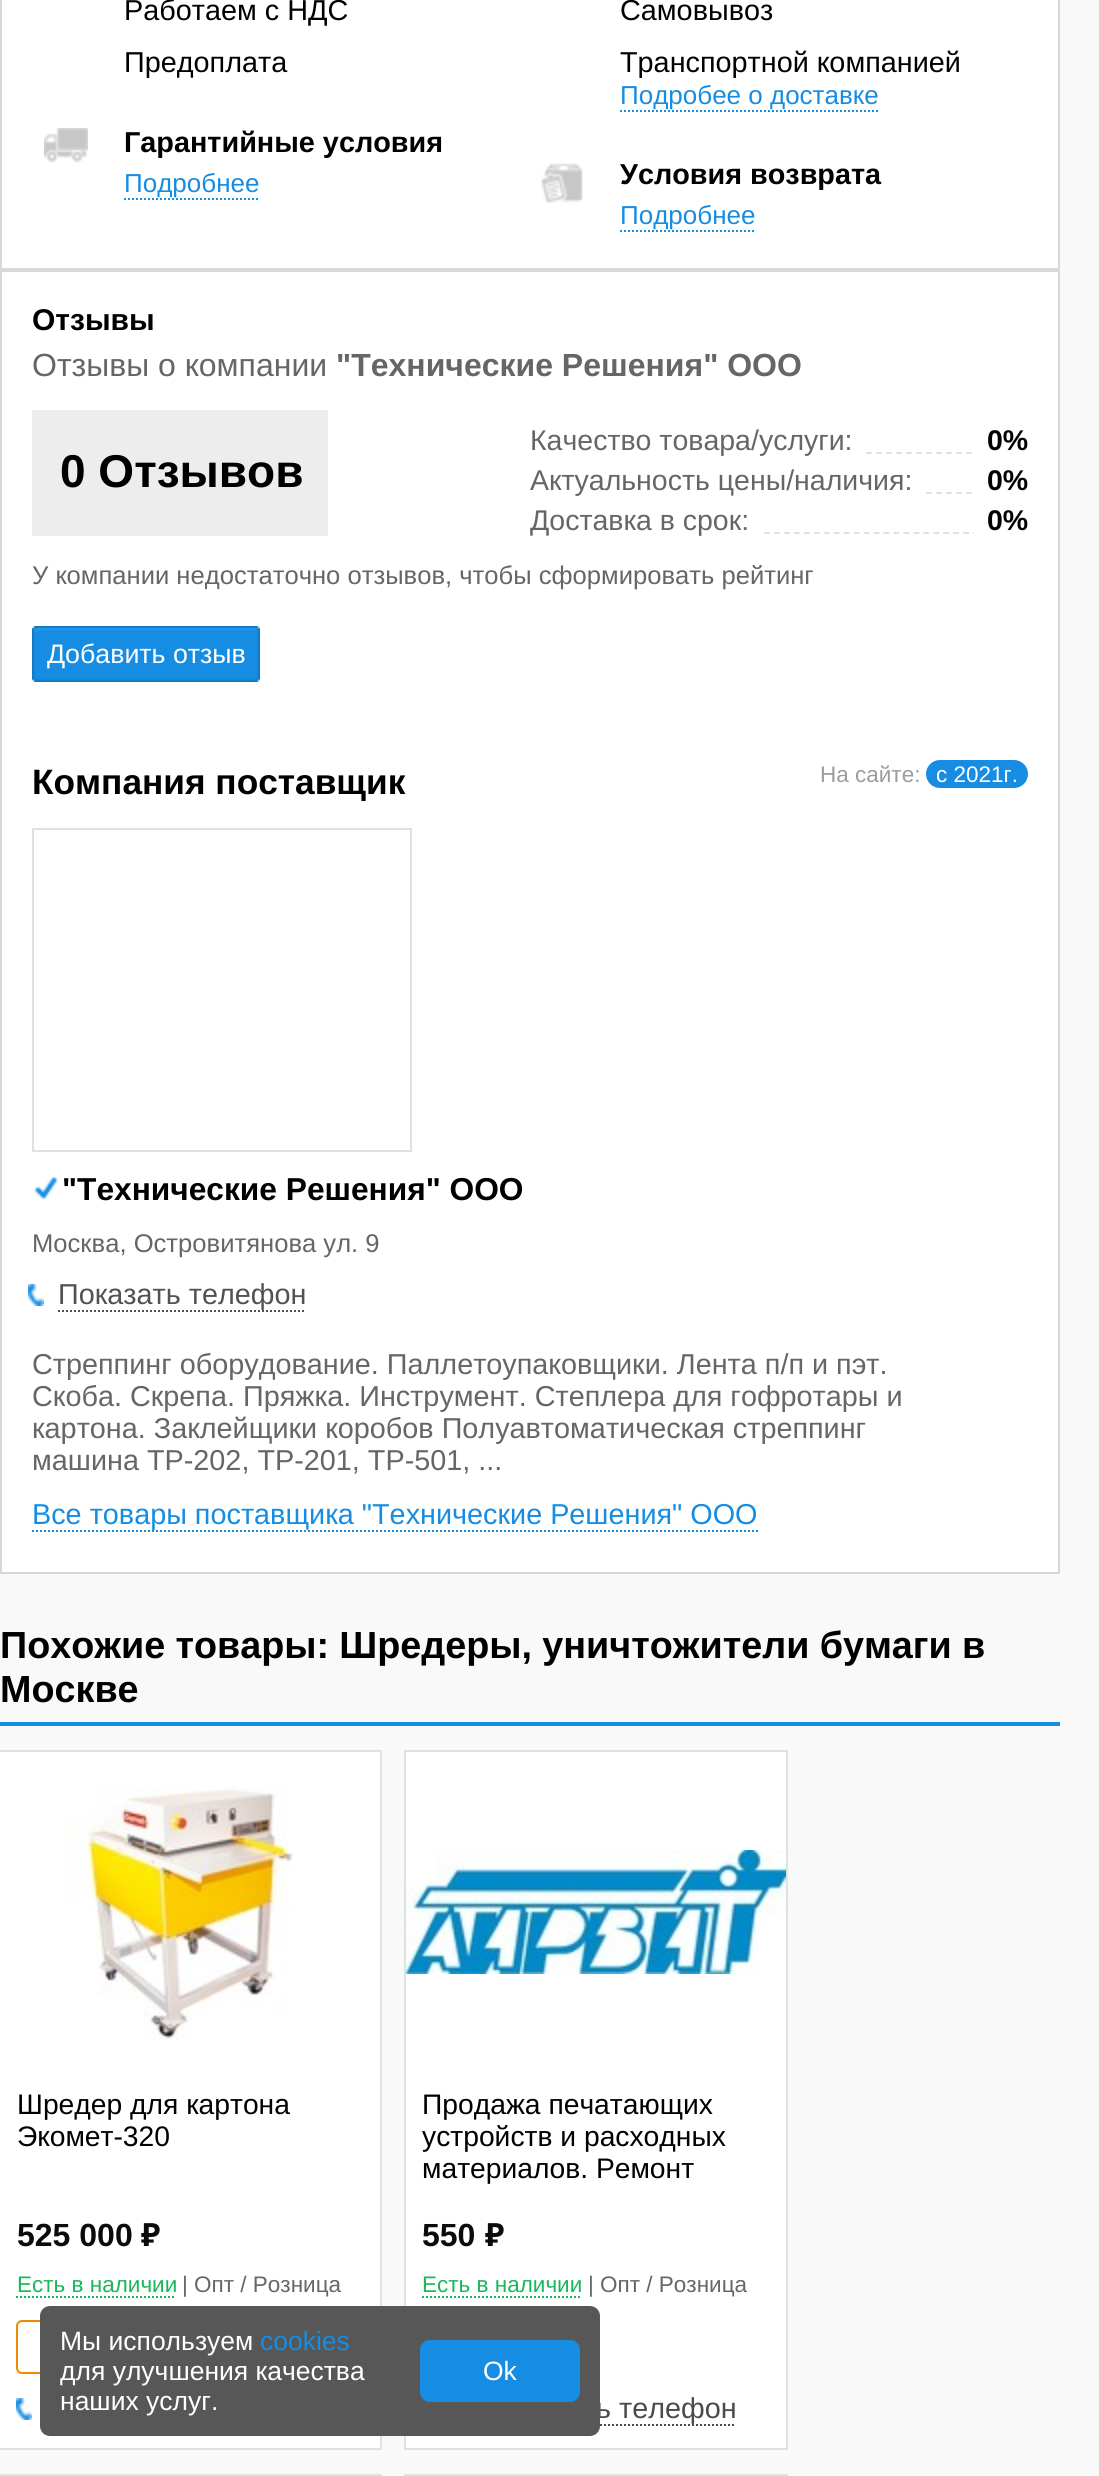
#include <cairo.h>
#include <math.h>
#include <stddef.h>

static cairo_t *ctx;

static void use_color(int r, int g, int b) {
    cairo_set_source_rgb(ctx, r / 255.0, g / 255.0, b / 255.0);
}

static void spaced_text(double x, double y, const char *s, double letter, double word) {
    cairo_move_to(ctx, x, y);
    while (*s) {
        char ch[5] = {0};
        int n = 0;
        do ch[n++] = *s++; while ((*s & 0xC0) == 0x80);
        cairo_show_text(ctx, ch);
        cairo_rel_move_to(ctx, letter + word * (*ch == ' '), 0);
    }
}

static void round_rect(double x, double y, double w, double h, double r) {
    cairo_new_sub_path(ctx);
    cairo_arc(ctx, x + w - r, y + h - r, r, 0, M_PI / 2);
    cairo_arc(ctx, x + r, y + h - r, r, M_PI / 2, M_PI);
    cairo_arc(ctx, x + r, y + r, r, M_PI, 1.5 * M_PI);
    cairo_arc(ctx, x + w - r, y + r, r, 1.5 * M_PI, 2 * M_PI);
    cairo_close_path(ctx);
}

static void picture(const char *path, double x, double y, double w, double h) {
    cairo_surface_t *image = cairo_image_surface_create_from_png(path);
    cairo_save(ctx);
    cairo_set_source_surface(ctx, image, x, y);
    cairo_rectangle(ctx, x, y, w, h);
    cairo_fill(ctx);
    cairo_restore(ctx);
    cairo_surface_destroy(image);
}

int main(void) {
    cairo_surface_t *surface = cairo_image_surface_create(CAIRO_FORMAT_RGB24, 1099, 2476);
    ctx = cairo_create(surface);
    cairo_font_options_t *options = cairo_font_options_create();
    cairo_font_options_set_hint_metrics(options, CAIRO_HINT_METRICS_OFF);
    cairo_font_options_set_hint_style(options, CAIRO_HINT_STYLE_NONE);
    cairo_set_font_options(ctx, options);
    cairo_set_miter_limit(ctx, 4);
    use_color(249, 249, 249);
    cairo_paint(ctx);
    use_color(255, 255, 255);
    cairo_rectangle(ctx, 2, 0, 1056, 1572);
    cairo_fill(ctx);
    use_color(216, 216, 216);
    cairo_new_path(ctx);
    cairo_move_to(ctx, 1060, -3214);
    cairo_line_to(ctx, 1060, 1574);
    cairo_line_to(ctx, 1058, 1572);
    cairo_line_to(ctx, 1058, -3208);
    cairo_close_path(ctx);
    cairo_fill(ctx);
    cairo_rectangle(ctx, 0, 1572, 1060, 2);
    cairo_fill(ctx);
    cairo_new_path(ctx);
    cairo_move_to(ctx, 0, 1574);
    cairo_line_to(ctx, 0, -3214);
    cairo_line_to(ctx, 2, -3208);
    cairo_line_to(ctx, 2, 1572);
    cairo_close_path(ctx);
    cairo_fill(ctx);
    cairo_rectangle(ctx, 2, 268, 1056, 4);
    cairo_fill(ctx);
    cairo_select_font_face(ctx, "Arimo", CAIRO_FONT_SLANT_NORMAL, CAIRO_FONT_WEIGHT_NORMAL);
    cairo_set_font_size(ctx, 28.8);
    use_color(0, 0, 0);
    cairo_move_to(ctx, 124, 20);
    cairo_show_text(ctx, "Работаем с НДС");
    cairo_move_to(ctx, 124, 72);
    cairo_show_text(ctx, "Предоплата");
    picture("img1.png", 44, 128, 44, 35);
    cairo_select_font_face(ctx, "Arimo", CAIRO_FONT_SLANT_NORMAL, CAIRO_FONT_WEIGHT_BOLD);
    cairo_move_to(ctx, 124, 152);
    cairo_show_text(ctx, "Гарантийные условия");
    cairo_select_font_face(ctx, "Arimo", CAIRO_FONT_SLANT_NORMAL, CAIRO_FONT_WEIGHT_NORMAL);
    cairo_set_font_size(ctx, 26);
    use_color(22, 141, 226);
    cairo_move_to(ctx, 124, 192);
    cairo_show_text(ctx, "Подробнее");
    cairo_new_path(ctx);
    cairo_move_to(ctx, 124, 199);
    cairo_line_to(ctx, 258, 199);
    cairo_set_dash(ctx, (double[]){2, 2}, 2, 0);
    cairo_stroke(ctx);
    cairo_set_font_size(ctx, 28.8);
    use_color(0, 0, 0);
    cairo_move_to(ctx, 620, 20);
    cairo_show_text(ctx, "Самовывоз");
    cairo_move_to(ctx, 620, 72);
    cairo_show_text(ctx, "Транспортной компанией");
    cairo_set_font_size(ctx, 26);
    use_color(22, 141, 226);
    cairo_move_to(ctx, 620, 104);
    cairo_show_text(ctx, "Подробее о доставке");
    cairo_new_path(ctx);
    cairo_move_to(ctx, 620, 111);
    cairo_line_to(ctx, 878, 111);
    cairo_stroke(ctx);
    picture("img2.png", 541, 163, 42, 40);
    cairo_select_font_face(ctx, "Arimo", CAIRO_FONT_SLANT_NORMAL, CAIRO_FONT_WEIGHT_BOLD);
    cairo_set_font_size(ctx, 28.8);
    use_color(0, 0, 0);
    cairo_move_to(ctx, 620, 184);
    cairo_show_text(ctx, "Условия возврата");
    cairo_select_font_face(ctx, "Arimo", CAIRO_FONT_SLANT_NORMAL, CAIRO_FONT_WEIGHT_NORMAL);
    cairo_set_font_size(ctx, 26);
    use_color(22, 141, 226);
    cairo_move_to(ctx, 620, 224);
    cairo_show_text(ctx, "Подробнее");
    cairo_new_path(ctx);
    cairo_move_to(ctx, 620, 231);
    cairo_line_to(ctx, 754, 231);
    cairo_stroke(ctx);
    cairo_select_font_face(ctx, "Arimo", CAIRO_FONT_SLANT_NORMAL, CAIRO_FONT_WEIGHT_BOLD);
    cairo_set_font_size(ctx, 30);
    use_color(0, 0, 0);
    cairo_move_to(ctx, 32, 330);
    cairo_show_text(ctx, "Отзывы");
    cairo_select_font_face(ctx, "Arimo", CAIRO_FONT_SLANT_NORMAL, CAIRO_FONT_WEIGHT_NORMAL);
    cairo_set_font_size(ctx, 32);
    use_color(102, 102, 102);
    cairo_move_to(ctx, 32, 376);
    cairo_show_text(ctx, "Отзывы о компании");
    cairo_select_font_face(ctx, "Arimo", CAIRO_FONT_SLANT_NORMAL, CAIRO_FONT_WEIGHT_BOLD);
    cairo_move_to(ctx, 336, 376);
    cairo_show_text(ctx, "\"Технические Решения\" ООО");
    use_color(237, 237, 237);
    cairo_rectangle(ctx, 32, 410, 296, 126);
    cairo_fill(ctx);
    cairo_set_font_size(ctx, 46);
    use_color(0, 0, 0);
    cairo_move_to(ctx, 60, 487);
    cairo_show_text(ctx, "0 Отзывов");
    cairo_select_font_face(ctx, "Arimo", CAIRO_FONT_SLANT_NORMAL, CAIRO_FONT_WEIGHT_NORMAL);
    cairo_set_font_size(ctx, 28.5);
    use_color(102, 102, 102);
    cairo_move_to(ctx, 530, 450);
    cairo_show_text(ctx, "Качество товара/услуги:");
    cairo_save(ctx);
    cairo_rectangle(ctx, 530, 420, 444, 40);
    cairo_clip(ctx);
    cairo_new_path(ctx);
    cairo_move_to(ctx, 866, 453);
    cairo_line_to(ctx, 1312, 453);
    use_color(225, 225, 225);
    cairo_set_dash(ctx, (double[]){6, 4}, 2, 0);
    cairo_stroke(ctx);
    cairo_restore(ctx);
    cairo_select_font_face(ctx, "Arimo", CAIRO_FONT_SLANT_NORMAL, CAIRO_FONT_WEIGHT_BOLD);
    use_color(0, 0, 0);
    cairo_move_to(ctx, 987, 450);
    cairo_show_text(ctx, "0%");
    cairo_select_font_face(ctx, "Arimo", CAIRO_FONT_SLANT_NORMAL, CAIRO_FONT_WEIGHT_NORMAL);
    use_color(102, 102, 102);
    cairo_move_to(ctx, 530, 490);
    cairo_show_text(ctx, "Актуальность цены/наличия:");
    cairo_save(ctx);
    cairo_rectangle(ctx, 530, 460, 444, 40);
    cairo_clip(ctx);
    cairo_new_path(ctx);
    cairo_move_to(ctx, 926, 493);
    cairo_line_to(ctx, 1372, 493);
    use_color(225, 225, 225);
    cairo_set_dash(ctx, (double[]){6, 4}, 2, 0);
    cairo_stroke(ctx);
    cairo_restore(ctx);
    cairo_select_font_face(ctx, "Arimo", CAIRO_FONT_SLANT_NORMAL, CAIRO_FONT_WEIGHT_BOLD);
    use_color(0, 0, 0);
    cairo_move_to(ctx, 987, 490);
    cairo_show_text(ctx, "0%");
    cairo_select_font_face(ctx, "Arimo", CAIRO_FONT_SLANT_NORMAL, CAIRO_FONT_WEIGHT_NORMAL);
    use_color(102, 102, 102);
    cairo_move_to(ctx, 530, 530);
    cairo_show_text(ctx, "Доставка в срок:");
    cairo_save(ctx);
    cairo_rectangle(ctx, 530, 500, 444, 40);
    cairo_clip(ctx);
    cairo_new_path(ctx);
    cairo_move_to(ctx, 764, 533);
    cairo_line_to(ctx, 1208, 533);
    use_color(225, 225, 225);
    cairo_set_dash(ctx, (double[]){6, 3.96}, 2, 0);
    cairo_stroke(ctx);
    cairo_restore(ctx);
    cairo_select_font_face(ctx, "Arimo", CAIRO_FONT_SLANT_NORMAL, CAIRO_FONT_WEIGHT_BOLD);
    use_color(0, 0, 0);
    cairo_move_to(ctx, 987, 530);
    cairo_show_text(ctx, "0%");
    cairo_select_font_face(ctx, "Arimo", CAIRO_FONT_SLANT_NORMAL, CAIRO_FONT_WEIGHT_NORMAL);
    cairo_set_font_size(ctx, 25.6);
    use_color(102, 102, 102);
    cairo_move_to(ctx, 32, 584);
    cairo_show_text(ctx, "У компании недостаточно отзывов, чтобы сформировать рейтинг");
    picture("img3.png", 32, 626, 228, 56);
    cairo_select_font_face(ctx, "Liberation Sans", CAIRO_FONT_SLANT_NORMAL, CAIRO_FONT_WEIGHT_NORMAL);
    cairo_set_font_size(ctx, 26.75);
    use_color(255, 255, 255);
    cairo_move_to(ctx, 47, 663);
    cairo_show_text(ctx, "Добавить отзыв");
    cairo_select_font_face(ctx, "Arimo", CAIRO_FONT_SLANT_NORMAL, CAIRO_FONT_WEIGHT_BOLD);
    cairo_set_font_size(ctx, 35.25);
    use_color(0, 0, 0);
    cairo_move_to(ctx, 32, 794);
    cairo_show_text(ctx, "Компания поставщик");
    cairo_select_font_face(ctx, "Arimo", CAIRO_FONT_SLANT_NORMAL, CAIRO_FONT_WEIGHT_NORMAL);
    cairo_set_font_size(ctx, 22.5);
    use_color(156, 156, 156);
    cairo_move_to(ctx, 820, 782);
    cairo_show_text(ctx, "На сайте:");
    use_color(22, 141, 226);
    round_rect(926, 760, 102, 28, 14);
    cairo_fill(ctx);
    use_color(255, 255, 255);
    cairo_move_to(ctx, 936, 782);
    cairo_show_text(ctx, "с 2021г.");
    cairo_rectangle(ctx, 33, 829, 378, 322);
    use_color(225, 225, 225);
    cairo_set_dash(ctx, NULL, 0, 0);
    cairo_stroke(ctx);
    picture("img4.png", 33, 1176, 26, 24);
    cairo_select_font_face(ctx, "Arimo", CAIRO_FONT_SLANT_NORMAL, CAIRO_FONT_WEIGHT_BOLD);
    cairo_set_font_size(ctx, 31.7);
    use_color(0, 0, 0);
    cairo_move_to(ctx, 62, 1200);
    cairo_show_text(ctx, "\"Технические Решения\" ООО");
    cairo_select_font_face(ctx, "Arimo", CAIRO_FONT_SLANT_NORMAL, CAIRO_FONT_WEIGHT_NORMAL);
    cairo_set_font_size(ctx, 25.6);
    use_color(102, 102, 102);
    cairo_move_to(ctx, 32, 1252);
    cairo_show_text(ctx, "Москва, Островитянова ул. 9");
    cairo_new_path(ctx);
    cairo_move_to(ctx, 58, 1311);
    cairo_line_to(ctx, 306, 1311);
    use_color(82, 82, 82);
    cairo_set_dash(ctx, (double[]){2, 2}, 2, 0);
    cairo_stroke(ctx);
    picture("img5.png", 28, 1284, 16, 22);
    cairo_set_font_size(ctx, 28.8);
    cairo_move_to(ctx, 58, 1304);
    cairo_show_text(ctx, "Показать телефон");
    use_color(102, 102, 102);
    cairo_move_to(ctx, 32, 1374);
    cairo_show_text(ctx, "Стреппинг оборудование. Паллетоупаковщики. Лента п/п и пэт.");
    cairo_move_to(ctx, 32, 1406);
    cairo_show_text(ctx, "Скоба. Скрепа. Пряжка. Инструмент. Степлера для гофротары и");
    cairo_move_to(ctx, 32, 1438);
    cairo_show_text(ctx, "картона. Заклейщики коробов Полуавтоматическая стреппинг");
    cairo_move_to(ctx, 32, 1470);
    cairo_show_text(ctx, "машина ТР-202, ТР-201, ТР-501, ...");
    use_color(22, 141, 226);
    cairo_move_to(ctx, 32, 1524);
    cairo_show_text(ctx, "Все товары поставщика \"Технические Решения\" ООО");
    cairo_new_path(ctx);
    cairo_move_to(ctx, 32, 1531);
    cairo_line_to(ctx, 758, 1531);
    cairo_stroke(ctx);
    cairo_rectangle(ctx, 0, 1722, 1060, 4);
    cairo_fill(ctx);
    cairo_select_font_face(ctx, "Arimo", CAIRO_FONT_SLANT_NORMAL, CAIRO_FONT_WEIGHT_BOLD);
    cairo_set_font_size(ctx, 37.75);
    use_color(0, 0, 0);
    spaced_text(0, 1658, "Похожие товары: Шредеры, уничтожители бумаги в", 0, -0.25);
    cairo_move_to(ctx, 0, 1702);
    cairo_show_text(ctx, "Москве");
    use_color(255, 255, 255);
    cairo_rectangle(ctx, -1, 1751, 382, 698);
    cairo_fill_preserve(ctx);
    use_color(225, 225, 225);
    cairo_set_dash(ctx, NULL, 0, 0);
    cairo_stroke(ctx);
    picture("img6.png", 63, 1786, 230, 254);
    cairo_select_font_face(ctx, "Arimo", CAIRO_FONT_SLANT_NORMAL, CAIRO_FONT_WEIGHT_NORMAL);
    cairo_set_font_size(ctx, 28.25);
    use_color(0, 0, 0);
    cairo_move_to(ctx, 17, 2114);
    cairo_show_text(ctx, "Шредер для картона");
    cairo_move_to(ctx, 17, 2146);
    cairo_show_text(ctx, "Экомет-320");
    cairo_select_font_face(ctx, "Arimo", CAIRO_FONT_SLANT_NORMAL, CAIRO_FONT_WEIGHT_BOLD);
    cairo_set_font_size(ctx, 32);
    use_color(11, 11, 11);
    cairo_move_to(ctx, 17, 2246);
    cairo_show_text(ctx, "525 000");
    cairo_select_font_face(ctx, "Noto Sans", CAIRO_FONT_SLANT_NORMAL, CAIRO_FONT_WEIGHT_BOLD);
    cairo_move_to(ctx, 141, 2246);
    cairo_show_text(ctx, "₽");
    cairo_select_font_face(ctx, "Arimo", CAIRO_FONT_SLANT_NORMAL, CAIRO_FONT_WEIGHT_NORMAL);
    cairo_set_font_size(ctx, 22.5);
    use_color(26, 183, 90);
    cairo_move_to(ctx, 17, 2292);
    cairo_show_text(ctx, "Есть в наличии");
    cairo_new_path(ctx);
    cairo_move_to(ctx, 16, 2297);
    cairo_line_to(ctx, 176, 2297);
    cairo_set_dash(ctx, (double[]){2, 2}, 2, 0);
    cairo_stroke(ctx);
    use_color(102, 102, 102);
    cairo_move_to(ctx, 182, 2292);
    cairo_show_text(ctx, "| Опт / Розница");
    round_rect(17, 2321, 170, 52, 5);
    use_color(240, 138, 0);
    cairo_set_dash(ctx, NULL, 0, 0);
    cairo_stroke(ctx);
    picture("img5.png", 16, 2398, 16, 22);
    use_color(255, 255, 255);
    cairo_rectangle(ctx, 405, 1751, 382, 698);
    cairo_fill_preserve(ctx);
    use_color(225, 225, 225);
    cairo_stroke(ctx);
    picture("img7.png", 406, 1850, 380, 124);
    cairo_set_font_size(ctx, 28.25);
    use_color(0, 0, 0);
    cairo_move_to(ctx, 422, 2114);
    cairo_show_text(ctx, "Продажа печатающих");
    cairo_move_to(ctx, 422, 2146);
    cairo_show_text(ctx, "устройств и расходных");
    cairo_move_to(ctx, 422, 2178);
    cairo_show_text(ctx, "материалов. Ремонт");
    cairo_select_font_face(ctx, "Arimo", CAIRO_FONT_SLANT_NORMAL, CAIRO_FONT_WEIGHT_BOLD);
    cairo_set_font_size(ctx, 32);
    use_color(11, 11, 11);
    cairo_move_to(ctx, 422, 2246);
    cairo_show_text(ctx, "550");
    cairo_select_font_face(ctx, "Noto Sans", CAIRO_FONT_SLANT_NORMAL, CAIRO_FONT_WEIGHT_BOLD);
    cairo_move_to(ctx, 485, 2246);
    cairo_show_text(ctx, "₽");
    cairo_select_font_face(ctx, "Arimo", CAIRO_FONT_SLANT_NORMAL, CAIRO_FONT_WEIGHT_NORMAL);
    cairo_set_font_size(ctx, 22.5);
    use_color(26, 183, 90);
    cairo_move_to(ctx, 422, 2292);
    cairo_show_text(ctx, "Есть в наличии");
    cairo_new_path(ctx);
    cairo_move_to(ctx, 422, 2297);
    cairo_line_to(ctx, 582, 2297);
    cairo_set_dash(ctx, (double[]){2, 2}, 2, 0);
    cairo_stroke(ctx);
    use_color(102, 102, 102);
    cairo_move_to(ctx, 588, 2292);
    cairo_show_text(ctx, "| Опт / Розница");
    cairo_set_font_size(ctx, 28.8);
    use_color(75, 75, 75);
    cairo_move_to(ctx, 596, 2418);
    cairo_show_text(ctx, "ь телефон");
    cairo_new_path(ctx);
    cairo_move_to(ctx, 452, 2425);
    cairo_line_to(ctx, 736, 2425);
    cairo_stroke(ctx);
    cairo_rectangle(ctx, -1, 2475, 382, 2);
    use_color(225, 225, 225);
    cairo_set_dash(ctx, NULL, 0, 0);
    cairo_stroke(ctx);
    cairo_rectangle(ctx, 405, 2475, 382, 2);
    cairo_stroke(ctx);
    use_color(87, 87, 87);
    round_rect(40, 2306, 560, 130, 10);
    cairo_fill(ctx);
    cairo_set_font_size(ctx, 26.5);
    use_color(255, 255, 255);
    cairo_move_to(ctx, 60, 2350);
    cairo_show_text(ctx, "Мы используем");
    use_color(22, 141, 226);
    cairo_move_to(ctx, 260, 2350);
    cairo_show_text(ctx, "cookies");
    use_color(255, 255, 255);
    cairo_move_to(ctx, 60, 2380);
    cairo_show_text(ctx, "для улучшения качества");
    cairo_move_to(ctx, 60, 2410);
    cairo_show_text(ctx, "наших услуг.");
    use_color(22, 141, 226);
    round_rect(420, 2340, 160, 62, 10);
    cairo_fill(ctx);
    use_color(255, 255, 255);
    cairo_move_to(ctx, 483, 2380);
    cairo_show_text(ctx, "Ok");
    cairo_surface_write_to_png(surface, "result.png");
    cairo_font_options_destroy(options);
    cairo_destroy(ctx);
    cairo_surface_destroy(surface);
    return 0;
}
